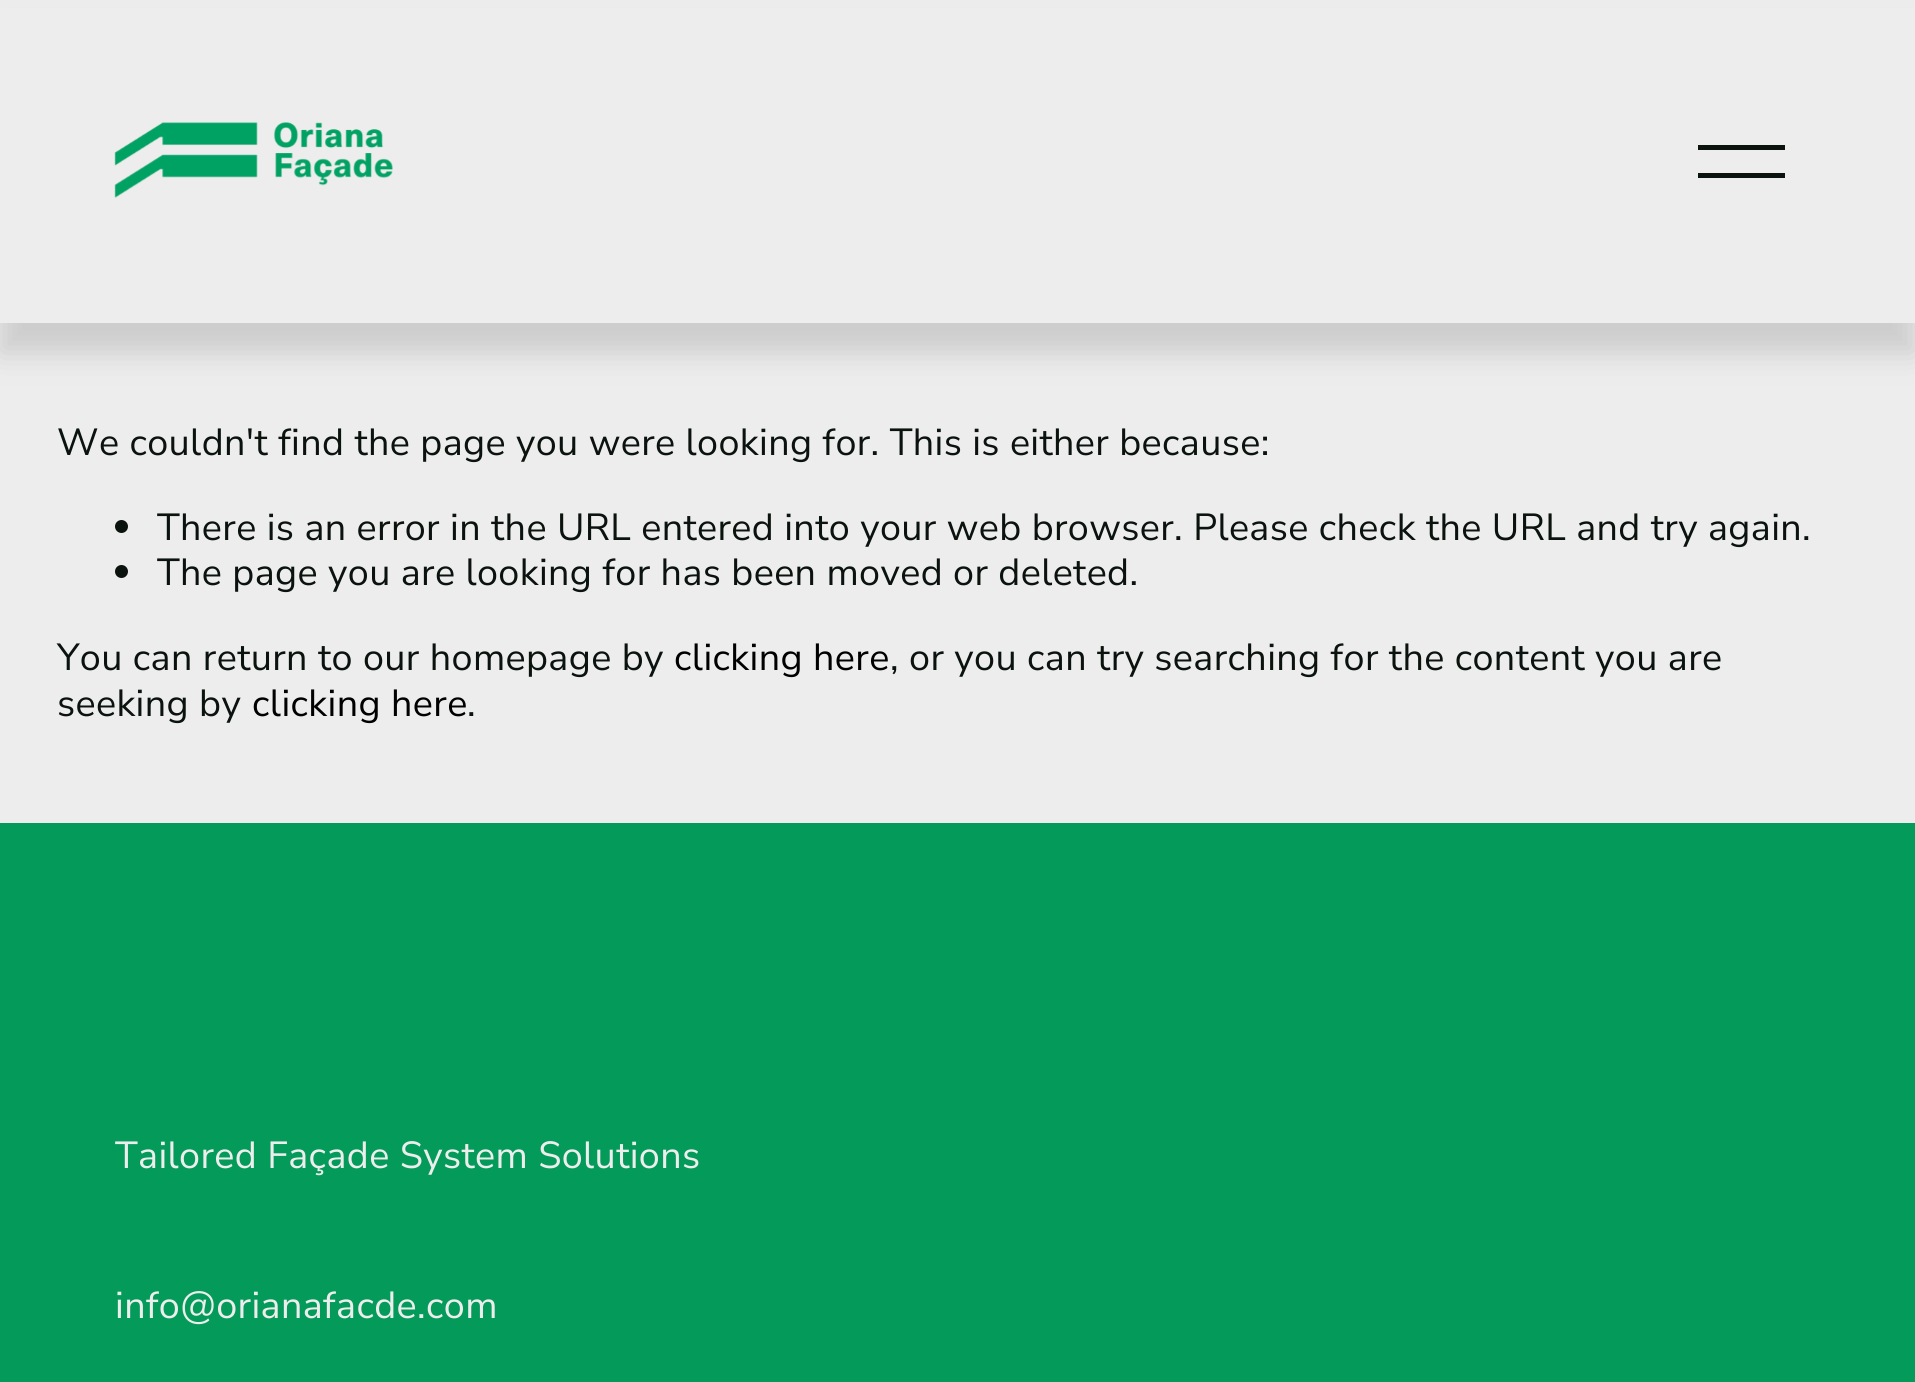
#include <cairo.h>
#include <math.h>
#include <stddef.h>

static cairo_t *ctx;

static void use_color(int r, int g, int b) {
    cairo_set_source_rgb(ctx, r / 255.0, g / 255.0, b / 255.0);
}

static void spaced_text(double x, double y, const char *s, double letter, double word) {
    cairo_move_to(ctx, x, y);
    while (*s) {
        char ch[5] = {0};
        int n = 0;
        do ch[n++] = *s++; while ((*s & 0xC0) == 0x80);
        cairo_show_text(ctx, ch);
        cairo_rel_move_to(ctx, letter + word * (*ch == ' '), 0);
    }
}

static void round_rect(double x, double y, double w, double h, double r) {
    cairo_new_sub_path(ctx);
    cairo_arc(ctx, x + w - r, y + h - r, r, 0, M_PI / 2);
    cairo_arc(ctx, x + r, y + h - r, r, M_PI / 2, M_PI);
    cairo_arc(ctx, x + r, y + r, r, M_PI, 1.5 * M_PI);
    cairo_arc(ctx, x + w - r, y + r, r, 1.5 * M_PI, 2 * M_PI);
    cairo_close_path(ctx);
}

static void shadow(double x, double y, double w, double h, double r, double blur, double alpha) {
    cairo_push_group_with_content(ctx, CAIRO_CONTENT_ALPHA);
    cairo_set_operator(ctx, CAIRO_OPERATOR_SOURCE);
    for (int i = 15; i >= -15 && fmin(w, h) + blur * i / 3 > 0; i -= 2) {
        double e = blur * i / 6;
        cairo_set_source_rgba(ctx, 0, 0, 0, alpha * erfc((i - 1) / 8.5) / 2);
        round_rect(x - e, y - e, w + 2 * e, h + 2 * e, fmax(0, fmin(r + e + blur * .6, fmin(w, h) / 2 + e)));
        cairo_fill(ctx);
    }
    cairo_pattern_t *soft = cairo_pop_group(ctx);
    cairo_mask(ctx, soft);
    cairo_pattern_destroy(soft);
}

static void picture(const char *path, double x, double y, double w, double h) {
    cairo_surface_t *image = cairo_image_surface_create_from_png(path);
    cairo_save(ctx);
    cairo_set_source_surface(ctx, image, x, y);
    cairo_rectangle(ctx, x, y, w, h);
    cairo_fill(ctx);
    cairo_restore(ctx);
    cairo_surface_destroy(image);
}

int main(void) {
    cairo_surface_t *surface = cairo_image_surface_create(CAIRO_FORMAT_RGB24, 1915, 1382);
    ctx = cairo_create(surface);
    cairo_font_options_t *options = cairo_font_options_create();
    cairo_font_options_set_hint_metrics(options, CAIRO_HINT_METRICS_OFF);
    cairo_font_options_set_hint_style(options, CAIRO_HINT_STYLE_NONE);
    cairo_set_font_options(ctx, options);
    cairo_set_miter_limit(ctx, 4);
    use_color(237, 237, 237);
    cairo_paint(ctx);
    use_color(203, 204, 203);
    shadow(0, 30, 1915, 323, 0, 15, 1);
    use_color(237, 237, 237);
    cairo_rectangle(ctx, 0, 8, 1915, 315);
    cairo_fill(ctx);
    picture("img1.png", 114, 122, 279, 76);
    use_color(11, 19, 14);
    cairo_rectangle(ctx, 1698, 145, 87, 5);
    cairo_fill(ctx);
    cairo_rectangle(ctx, 1698, 173, 87, 5);
    cairo_fill(ctx);
    cairo_select_font_face(ctx, "Nunito Sans", CAIRO_FONT_SLANT_NORMAL, CAIRO_FONT_WEIGHT_NORMAL);
    cairo_set_font_size(ctx, 37.7);
    spaced_text(57, 455, "We couldn't find the page you were looking for. This is either because:", 0.38, 0);
    cairo_new_path(ctx);
    cairo_arc(ctx, 121.5, 526.5, 6.5, 0, 2 * M_PI);
    cairo_fill(ctx);
    spaced_text(157, 540, "There is an error in the URL entered into your web browser. Please check the URL and try again.", 0.38, 0);
    cairo_new_path(ctx);
    cairo_arc(ctx, 121.5, 571.5, 6.5, 0, 2 * M_PI);
    cairo_fill(ctx);
    spaced_text(157, 585, "The page you are looking for has been moved or deleted.", 0.38, 0);
    spaced_text(57, 670, "You can return to our homepage by", 0.38, 0);
    use_color(0, 0, 0);
    spaced_text(674, 670, "clicking here", 0.38, 0);
    use_color(11, 19, 14);
    spaced_text(890, 670, ", or you can try searching for the content you are", 0.38, 0);
    spaced_text(57, 716, "seeking by", 0.38, 0);
    use_color(0, 0, 0);
    spaced_text(252, 716, "clicking here", 0.38, 0);
    use_color(11, 19, 14);
    spaced_text(467, 716, ".", 0.38, 0);
    use_color(4, 155, 90);
    cairo_rectangle(ctx, 0, 823, 1915, 559);
    cairo_fill(ctx);
    use_color(237, 237, 237);
    spaced_text(115, 1168, "Tailored Façade System Solutions", 0.38, 0);
    spaced_text(115, 1318, "info@orianafacde.com", 0.38, 0);
    cairo_surface_write_to_png(surface, "result.png");
    cairo_font_options_destroy(options);
    cairo_destroy(ctx);
    cairo_surface_destroy(surface);
    return 0;
}
